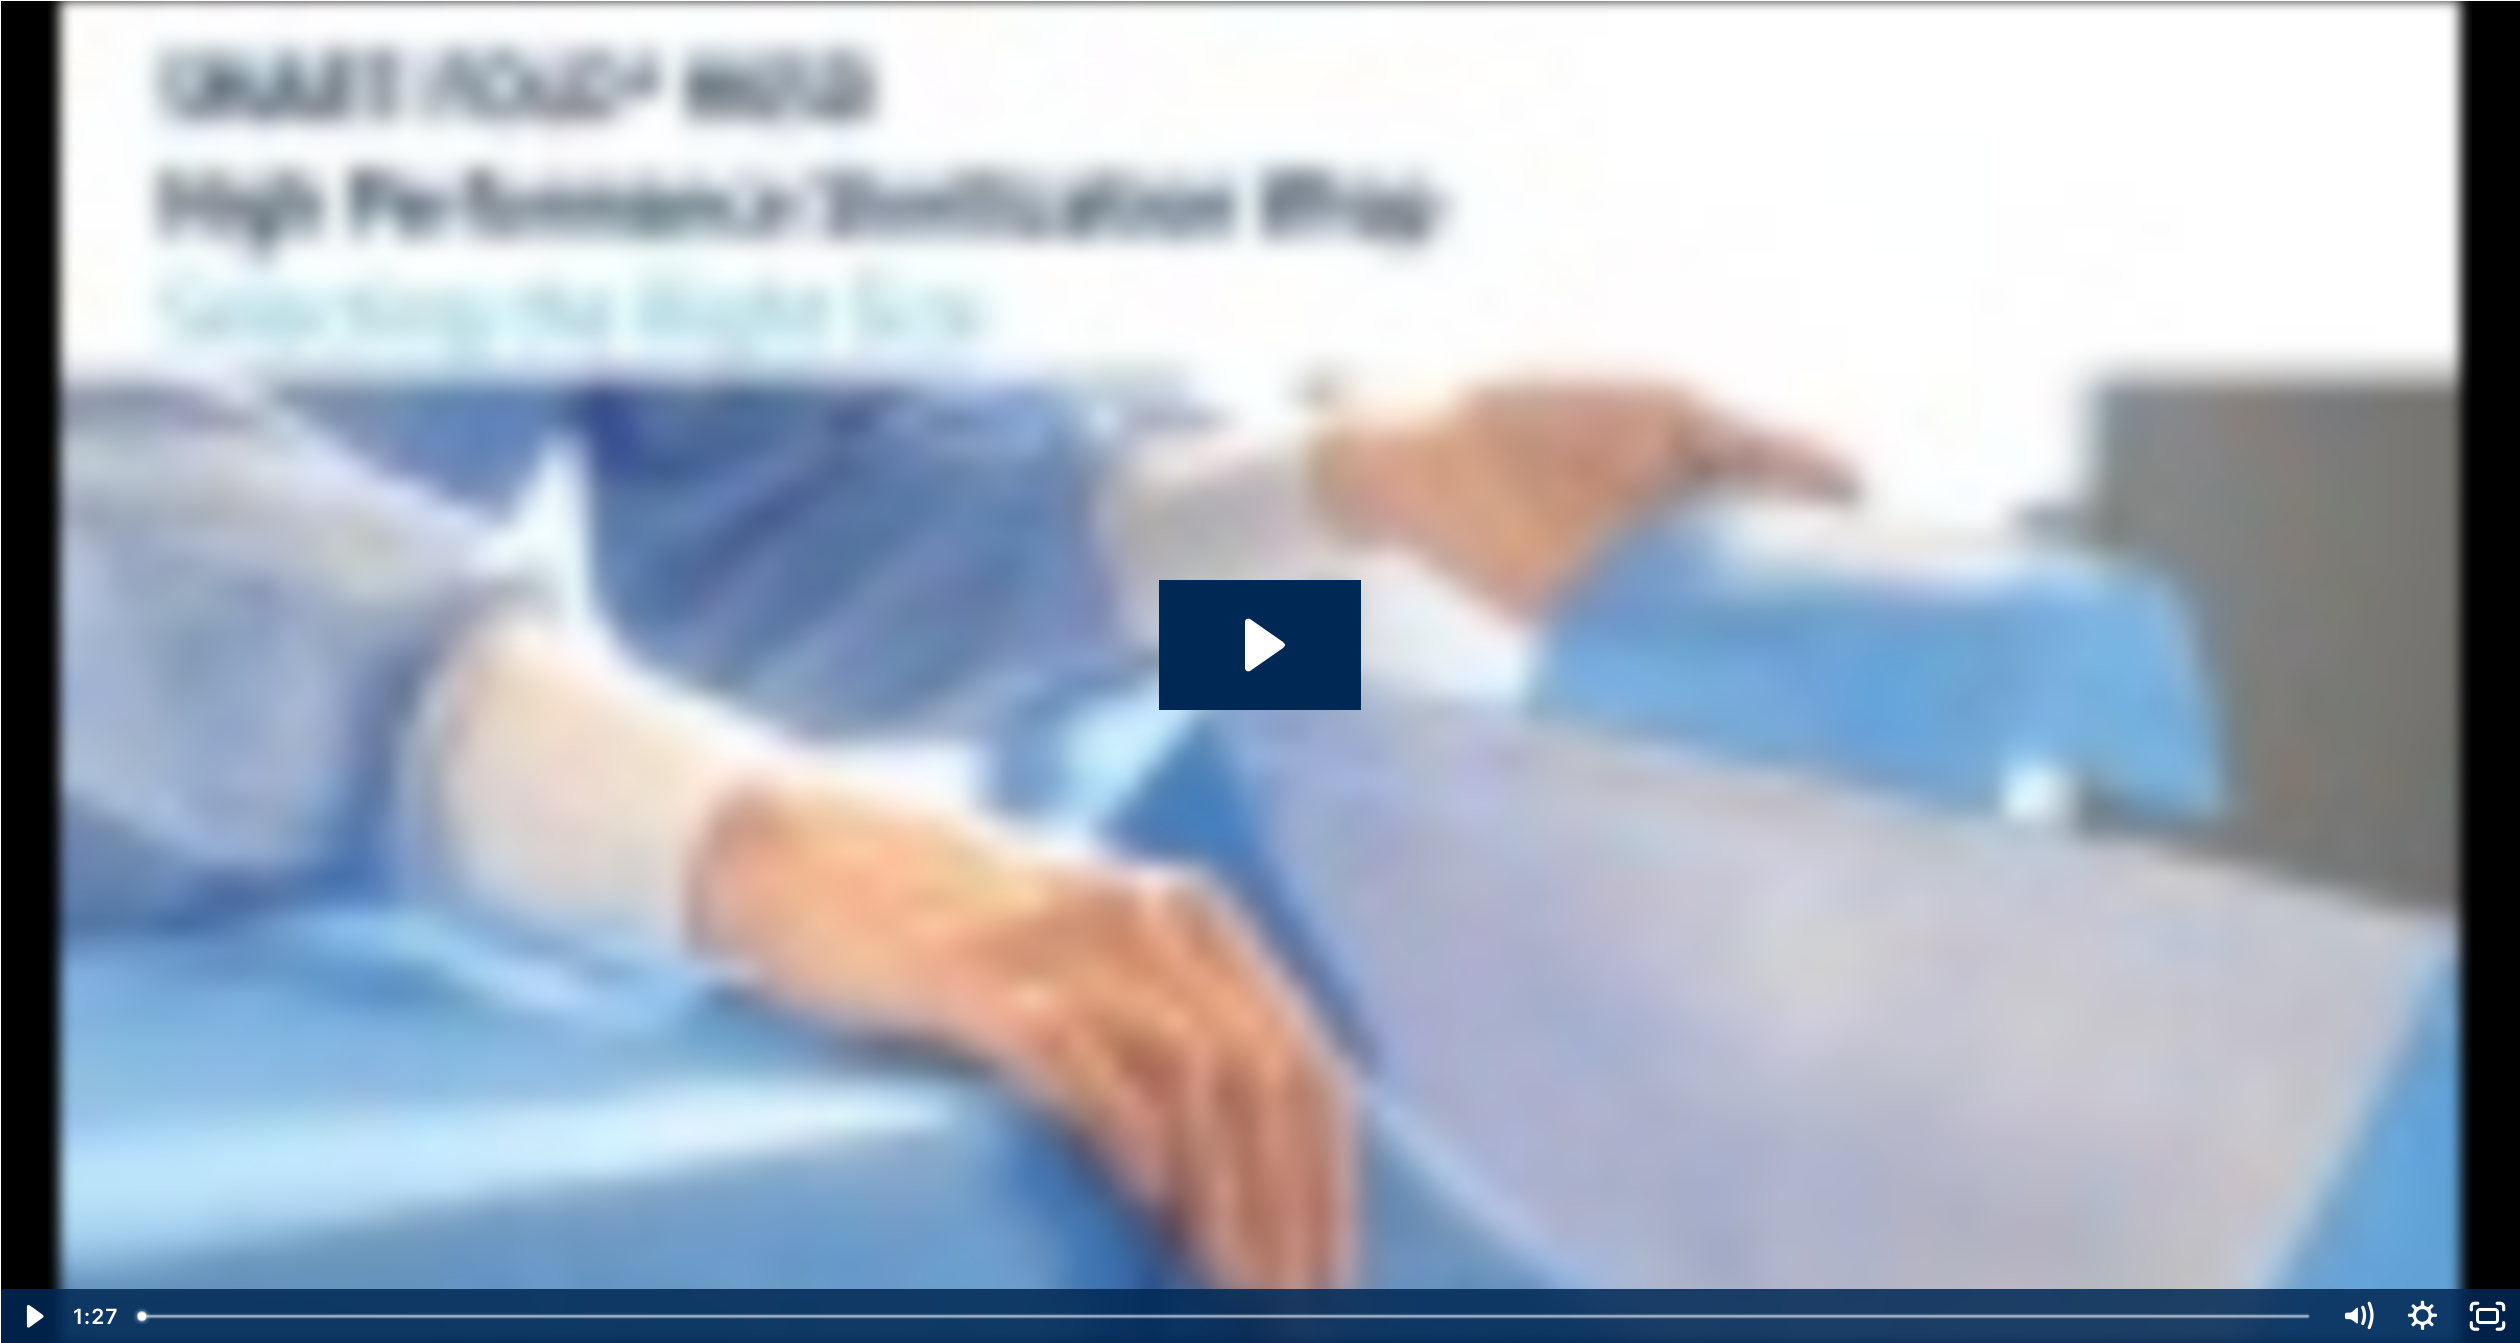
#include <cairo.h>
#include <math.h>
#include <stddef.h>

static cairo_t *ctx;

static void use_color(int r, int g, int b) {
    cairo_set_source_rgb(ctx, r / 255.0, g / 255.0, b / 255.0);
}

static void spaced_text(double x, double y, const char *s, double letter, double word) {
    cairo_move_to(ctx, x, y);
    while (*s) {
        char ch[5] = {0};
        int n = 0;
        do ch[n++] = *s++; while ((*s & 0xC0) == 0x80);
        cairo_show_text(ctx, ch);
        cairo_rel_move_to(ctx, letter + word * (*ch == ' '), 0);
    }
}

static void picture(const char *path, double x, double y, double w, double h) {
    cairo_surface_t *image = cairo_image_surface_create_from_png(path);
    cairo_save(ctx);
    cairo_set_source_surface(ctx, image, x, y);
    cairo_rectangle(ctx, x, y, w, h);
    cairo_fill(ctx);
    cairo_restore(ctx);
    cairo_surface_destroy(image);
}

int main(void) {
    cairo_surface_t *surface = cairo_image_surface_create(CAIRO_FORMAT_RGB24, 2520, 1343);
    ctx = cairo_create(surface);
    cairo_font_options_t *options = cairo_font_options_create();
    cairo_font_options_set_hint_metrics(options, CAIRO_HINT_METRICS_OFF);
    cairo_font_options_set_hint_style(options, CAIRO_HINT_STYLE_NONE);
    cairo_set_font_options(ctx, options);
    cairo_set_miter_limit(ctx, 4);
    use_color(255, 255, 255);
    cairo_paint(ctx);
    use_color(0, 0, 0);
    cairo_rectangle(ctx, 1, 1, 2519, 1342);
    cairo_fill(ctx);
    picture("img1.png", 48, 1, 2424, 1342);
    use_color(0, 40, 85);
    cairo_rectangle(ctx, 1159, 580, 202, 130);
    cairo_fill(ctx);
    use_color(255, 255, 255);
    cairo_set_fill_rule(ctx, CAIRO_FILL_RULE_EVEN_ODD);
    cairo_new_path(ctx);
    cairo_move_to(ctx, 1250, 619);
    cairo_curve_to(ctx, 1248, 618, 1245, 619, 1245, 622);
    cairo_line_to(ctx, 1245, 668);
    cairo_curve_to(ctx, 1245, 671, 1248, 672, 1250, 671);
    cairo_line_to(ctx, 1283, 648);
    cairo_curve_to(ctx, 1284, 647, 1285, 646, 1285, 645);
    cairo_curve_to(ctx, 1285, 644, 1284, 643, 1283, 642);
    cairo_close_path(ctx);
    cairo_fill(ctx);
    cairo_set_source_rgba(ctx, 0, 0.157, 0.333, 0.85);
    cairo_rectangle(ctx, 1, 1289, 2519, 54);
    cairo_fill(ctx);
    picture("img2.png", 26, 1304, 18, 24);
    cairo_select_font_face(ctx, "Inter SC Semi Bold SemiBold", CAIRO_FONT_SLANT_NORMAL, CAIRO_FONT_WEIGHT_NORMAL);
    cairo_set_font_size(ctx, 21);
    use_color(255, 255, 255);
    spaced_text(73, 1324, "1:27", 1, 0);
    picture("img3.png", 133, 1307, 2177, 18);
    picture("img4.png", 2344, 1301, 30, 29);
    picture("img5.png", 2407, 1300, 31, 30);
    picture("img6.png", 2469, 1301, 37, 30);
    cairo_surface_write_to_png(surface, "result.png");
    cairo_font_options_destroy(options);
    cairo_destroy(ctx);
    cairo_surface_destroy(surface);
    return 0;
}
